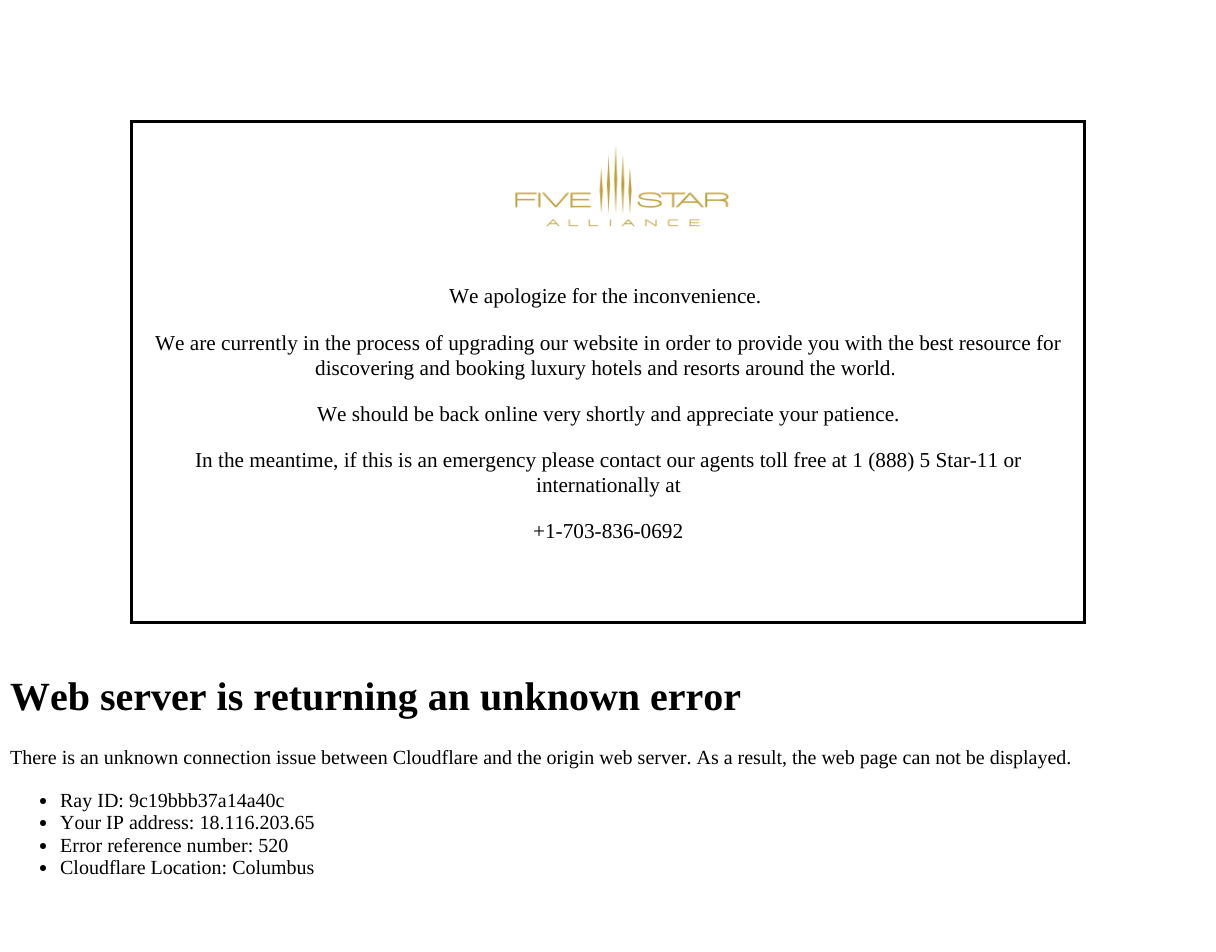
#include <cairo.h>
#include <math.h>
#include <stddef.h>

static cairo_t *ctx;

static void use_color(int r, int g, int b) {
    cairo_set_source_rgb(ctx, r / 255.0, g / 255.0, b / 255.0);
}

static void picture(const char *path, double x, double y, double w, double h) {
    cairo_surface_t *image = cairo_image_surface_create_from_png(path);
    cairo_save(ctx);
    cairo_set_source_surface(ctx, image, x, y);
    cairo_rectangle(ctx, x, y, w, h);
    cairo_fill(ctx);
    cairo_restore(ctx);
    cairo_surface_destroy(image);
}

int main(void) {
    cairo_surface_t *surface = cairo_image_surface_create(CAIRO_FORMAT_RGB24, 1216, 952);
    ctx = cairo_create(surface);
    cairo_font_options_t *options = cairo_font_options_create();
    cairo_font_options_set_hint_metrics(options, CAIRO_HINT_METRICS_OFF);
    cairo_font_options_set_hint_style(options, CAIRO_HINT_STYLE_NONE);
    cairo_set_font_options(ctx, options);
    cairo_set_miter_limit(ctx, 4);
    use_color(255, 255, 255);
    cairo_paint(ctx);
    cairo_rectangle(ctx, 131.5, 121.5, 953, 501);
    use_color(0, 0, 0);
    cairo_set_line_width(ctx, 3);
    cairo_stroke(ctx);
    picture("img1.png", 515, 145, 214, 82);
    cairo_select_font_face(ctx, "Liberation Serif", CAIRO_FONT_SLANT_NORMAL, CAIRO_FONT_WEIGHT_NORMAL);
    cairo_set_font_size(ctx, 21.25);
    cairo_move_to(ctx, 449, 303);
    cairo_show_text(ctx, "We apologize for the inconvenience.");
    cairo_move_to(ctx, 155, 350);
    cairo_show_text(ctx, "We are currently in the process of upgrading our website in order to provide you with the best resource for");
    cairo_move_to(ctx, 315, 375);
    cairo_show_text(ctx, "discovering and booking luxury hotels and resorts around the world.");
    cairo_move_to(ctx, 317, 421);
    cairo_show_text(ctx, "We should be back online very shortly and appreciate your patience.");
    cairo_move_to(ctx, 195, 467);
    cairo_show_text(ctx, "In the meantime, if this is an emergency please contact our agents toll free at 1 (888) 5 Star-11 or");
    cairo_move_to(ctx, 536, 492);
    cairo_show_text(ctx, "internationally at");
    cairo_move_to(ctx, 533, 538);
    cairo_show_text(ctx, "+1-703-836-0692");
    cairo_select_font_face(ctx, "Liberation Serif", CAIRO_FONT_SLANT_NORMAL, CAIRO_FONT_WEIGHT_BOLD);
    cairo_set_font_size(ctx, 40);
    cairo_move_to(ctx, 10, 710);
    cairo_show_text(ctx, "Web server is returning an unknown error");
    cairo_select_font_face(ctx, "Liberation Serif", CAIRO_FONT_SLANT_NORMAL, CAIRO_FONT_WEIGHT_NORMAL);
    cairo_set_font_size(ctx, 20);
    cairo_move_to(ctx, 10, 764);
    cairo_show_text(ctx, "There is an unknown connection issue between Cloudflare and the origin web server. As a result, the web page can not be displayed.");
    cairo_new_path(ctx);
    cairo_arc(ctx, 43, 801, 3, 0, 2 * M_PI);
    cairo_fill(ctx);
    cairo_move_to(ctx, 60, 807);
    cairo_show_text(ctx, "Ray ID: 9c19bbb37a14a40c");
    cairo_new_path(ctx);
    cairo_arc(ctx, 43, 823, 3, 0, 2 * M_PI);
    cairo_fill(ctx);
    cairo_move_to(ctx, 60, 829);
    cairo_show_text(ctx, "Your IP address: 18.116.203.65");
    cairo_new_path(ctx);
    cairo_arc(ctx, 43, 846, 3, 0, 2 * M_PI);
    cairo_fill(ctx);
    cairo_move_to(ctx, 60, 852);
    cairo_show_text(ctx, "Error reference number: 520");
    cairo_new_path(ctx);
    cairo_arc(ctx, 43, 868, 3, 0, 2 * M_PI);
    cairo_fill(ctx);
    cairo_move_to(ctx, 60, 874);
    cairo_show_text(ctx, "Cloudflare Location: Columbus");
    cairo_surface_write_to_png(surface, "result.png");
    cairo_font_options_destroy(options);
    cairo_destroy(ctx);
    cairo_surface_destroy(surface);
    return 0;
}
